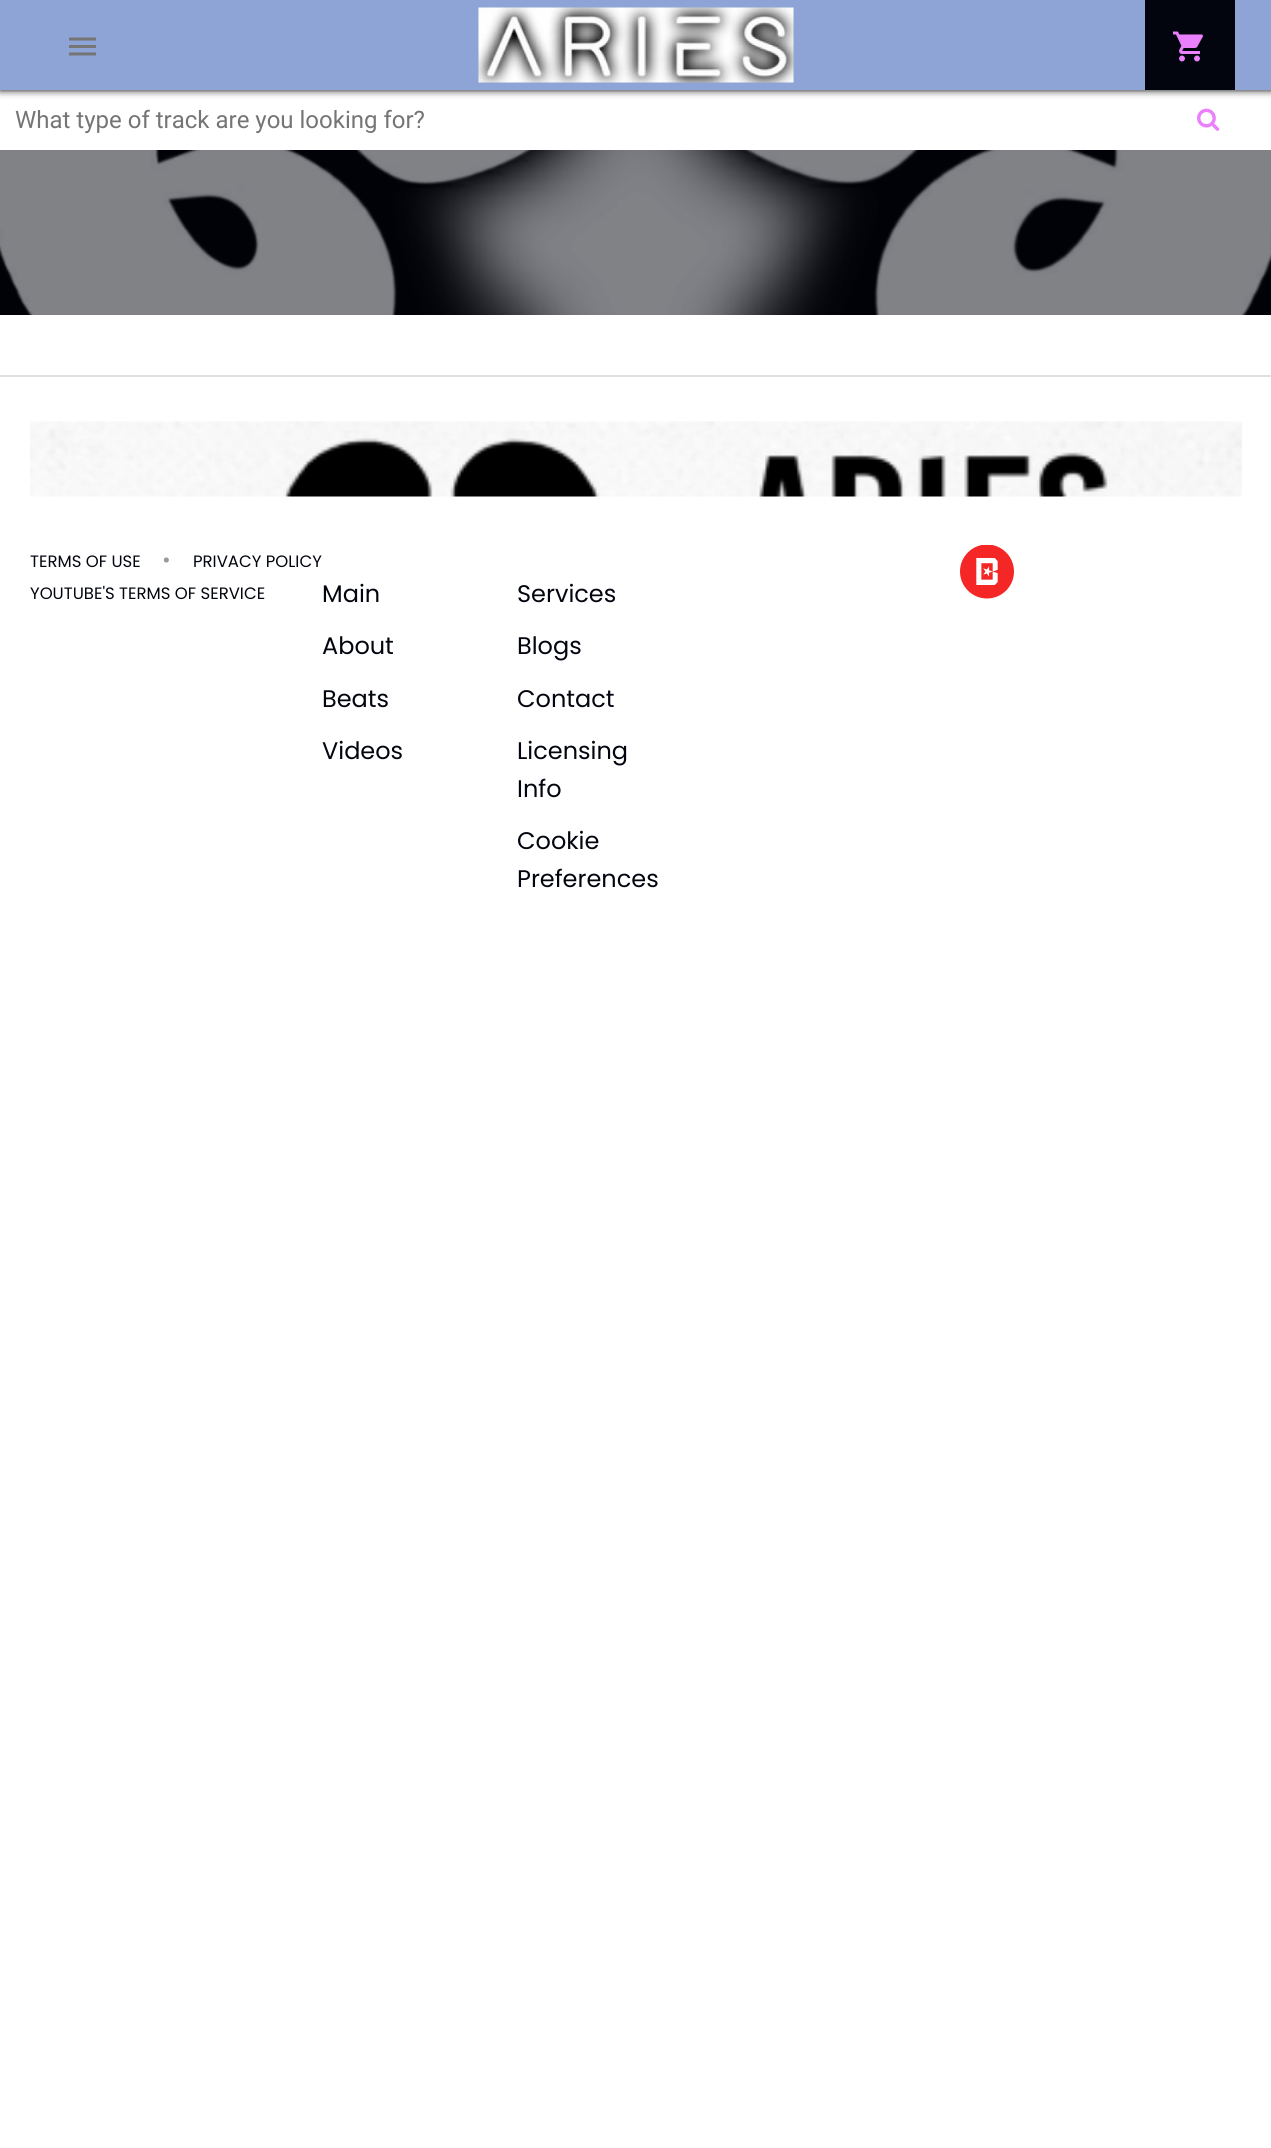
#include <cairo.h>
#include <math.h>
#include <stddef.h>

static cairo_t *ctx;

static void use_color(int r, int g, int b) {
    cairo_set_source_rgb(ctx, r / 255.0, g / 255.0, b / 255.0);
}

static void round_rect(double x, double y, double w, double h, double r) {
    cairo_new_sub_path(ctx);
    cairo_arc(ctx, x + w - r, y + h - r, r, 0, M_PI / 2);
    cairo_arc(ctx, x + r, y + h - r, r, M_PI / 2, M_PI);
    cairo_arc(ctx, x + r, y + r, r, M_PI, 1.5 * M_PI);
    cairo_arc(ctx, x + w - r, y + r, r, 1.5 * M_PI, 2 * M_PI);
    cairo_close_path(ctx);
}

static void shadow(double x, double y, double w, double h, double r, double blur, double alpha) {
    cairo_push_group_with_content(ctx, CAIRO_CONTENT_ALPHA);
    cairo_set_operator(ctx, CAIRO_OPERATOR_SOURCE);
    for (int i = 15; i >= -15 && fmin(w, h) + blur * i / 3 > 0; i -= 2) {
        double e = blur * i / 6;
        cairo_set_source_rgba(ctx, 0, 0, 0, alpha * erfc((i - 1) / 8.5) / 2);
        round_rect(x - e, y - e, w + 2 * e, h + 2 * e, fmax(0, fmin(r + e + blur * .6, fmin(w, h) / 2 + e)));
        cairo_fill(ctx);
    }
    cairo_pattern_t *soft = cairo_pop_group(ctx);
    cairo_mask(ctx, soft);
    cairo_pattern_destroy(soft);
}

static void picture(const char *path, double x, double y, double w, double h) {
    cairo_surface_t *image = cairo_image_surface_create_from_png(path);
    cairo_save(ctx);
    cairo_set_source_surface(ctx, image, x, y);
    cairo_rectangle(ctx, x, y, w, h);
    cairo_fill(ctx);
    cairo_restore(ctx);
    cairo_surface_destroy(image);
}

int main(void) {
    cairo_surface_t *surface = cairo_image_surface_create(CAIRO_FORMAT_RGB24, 1271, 2148);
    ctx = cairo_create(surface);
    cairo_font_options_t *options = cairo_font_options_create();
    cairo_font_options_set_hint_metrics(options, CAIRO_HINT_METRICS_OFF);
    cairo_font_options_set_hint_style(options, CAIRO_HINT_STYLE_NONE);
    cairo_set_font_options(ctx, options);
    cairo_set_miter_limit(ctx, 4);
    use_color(255, 255, 255);
    cairo_paint(ctx);
    use_color(0, 0, 0);
    shadow(0, 0, 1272, 90, 0, 4, 1);
    use_color(142, 164, 214);
    cairo_rectangle(ctx, 0, 0, 1271, 90);
    cairo_fill(ctx);
    picture("img1.png", 69, 37, 27, 19);
    picture("img2.png", 478, 7, 316, 76);
    use_color(2, 5, 14);
    cairo_rectangle(ctx, 1145, 0, 90, 90);
    cairo_fill(ctx);
    picture("img3.png", 1172, 31, 31, 31);
    cairo_select_font_face(ctx, "Roboto", CAIRO_FONT_SLANT_NORMAL, CAIRO_FONT_WEIGHT_NORMAL);
    cairo_set_font_size(ctx, 24);
    use_color(117, 117, 117);
    cairo_move_to(ctx, 15, 128);
    cairo_show_text(ctx, "What type of track are you looking for?");
    picture("img4.png", 1197, 108, 23, 23);
    picture("img5.png", 0, 150, 1271, 165);
    use_color(224, 224, 224);
    cairo_rectangle(ctx, 0, 375, 1271, 2);
    cairo_fill(ctx);
    picture("img6.png", 30, 421, 1212, 76);
    cairo_select_font_face(ctx, "Poppins", CAIRO_FONT_SLANT_NORMAL, CAIRO_FONT_WEIGHT_NORMAL);
    cairo_set_font_size(ctx, 16.5);
    use_color(2, 5, 14);
    cairo_move_to(ctx, 30, 567);
    cairo_show_text(ctx, "TERMS OF USE");
    cairo_set_font_size(ctx, 21);
    use_color(153, 153, 153);
    cairo_move_to(ctx, 162, 567);
    cairo_show_text(ctx, "•");
    cairo_set_font_size(ctx, 16.5);
    use_color(2, 5, 14);
    cairo_move_to(ctx, 193, 567);
    cairo_show_text(ctx, "PRIVACY POLICY");
    cairo_move_to(ctx, 30, 599);
    cairo_show_text(ctx, "YOUTUBE'S TERMS OF SERVICE");
    picture("img7.png", 960, 545, 54, 54);
    cairo_set_font_size(ctx, 24);
    cairo_move_to(ctx, 322, 602);
    cairo_show_text(ctx, "Main");
    cairo_move_to(ctx, 322, 654);
    cairo_show_text(ctx, "About");
    cairo_move_to(ctx, 322, 707);
    cairo_show_text(ctx, "Beats");
    cairo_move_to(ctx, 322, 759);
    cairo_show_text(ctx, "Videos");
    cairo_move_to(ctx, 517, 602);
    cairo_show_text(ctx, "Services");
    cairo_move_to(ctx, 517, 654);
    cairo_show_text(ctx, "Blogs");
    cairo_move_to(ctx, 517, 707);
    cairo_show_text(ctx, "Contact");
    cairo_move_to(ctx, 517, 759);
    cairo_show_text(ctx, "Licensing");
    cairo_move_to(ctx, 517, 797);
    cairo_show_text(ctx, "Info");
    cairo_move_to(ctx, 517, 849);
    cairo_show_text(ctx, "Cookie");
    cairo_move_to(ctx, 517, 887);
    cairo_show_text(ctx, "Preferences");
    cairo_surface_write_to_png(surface, "result.png");
    cairo_font_options_destroy(options);
    cairo_destroy(ctx);
    cairo_surface_destroy(surface);
    return 0;
}
